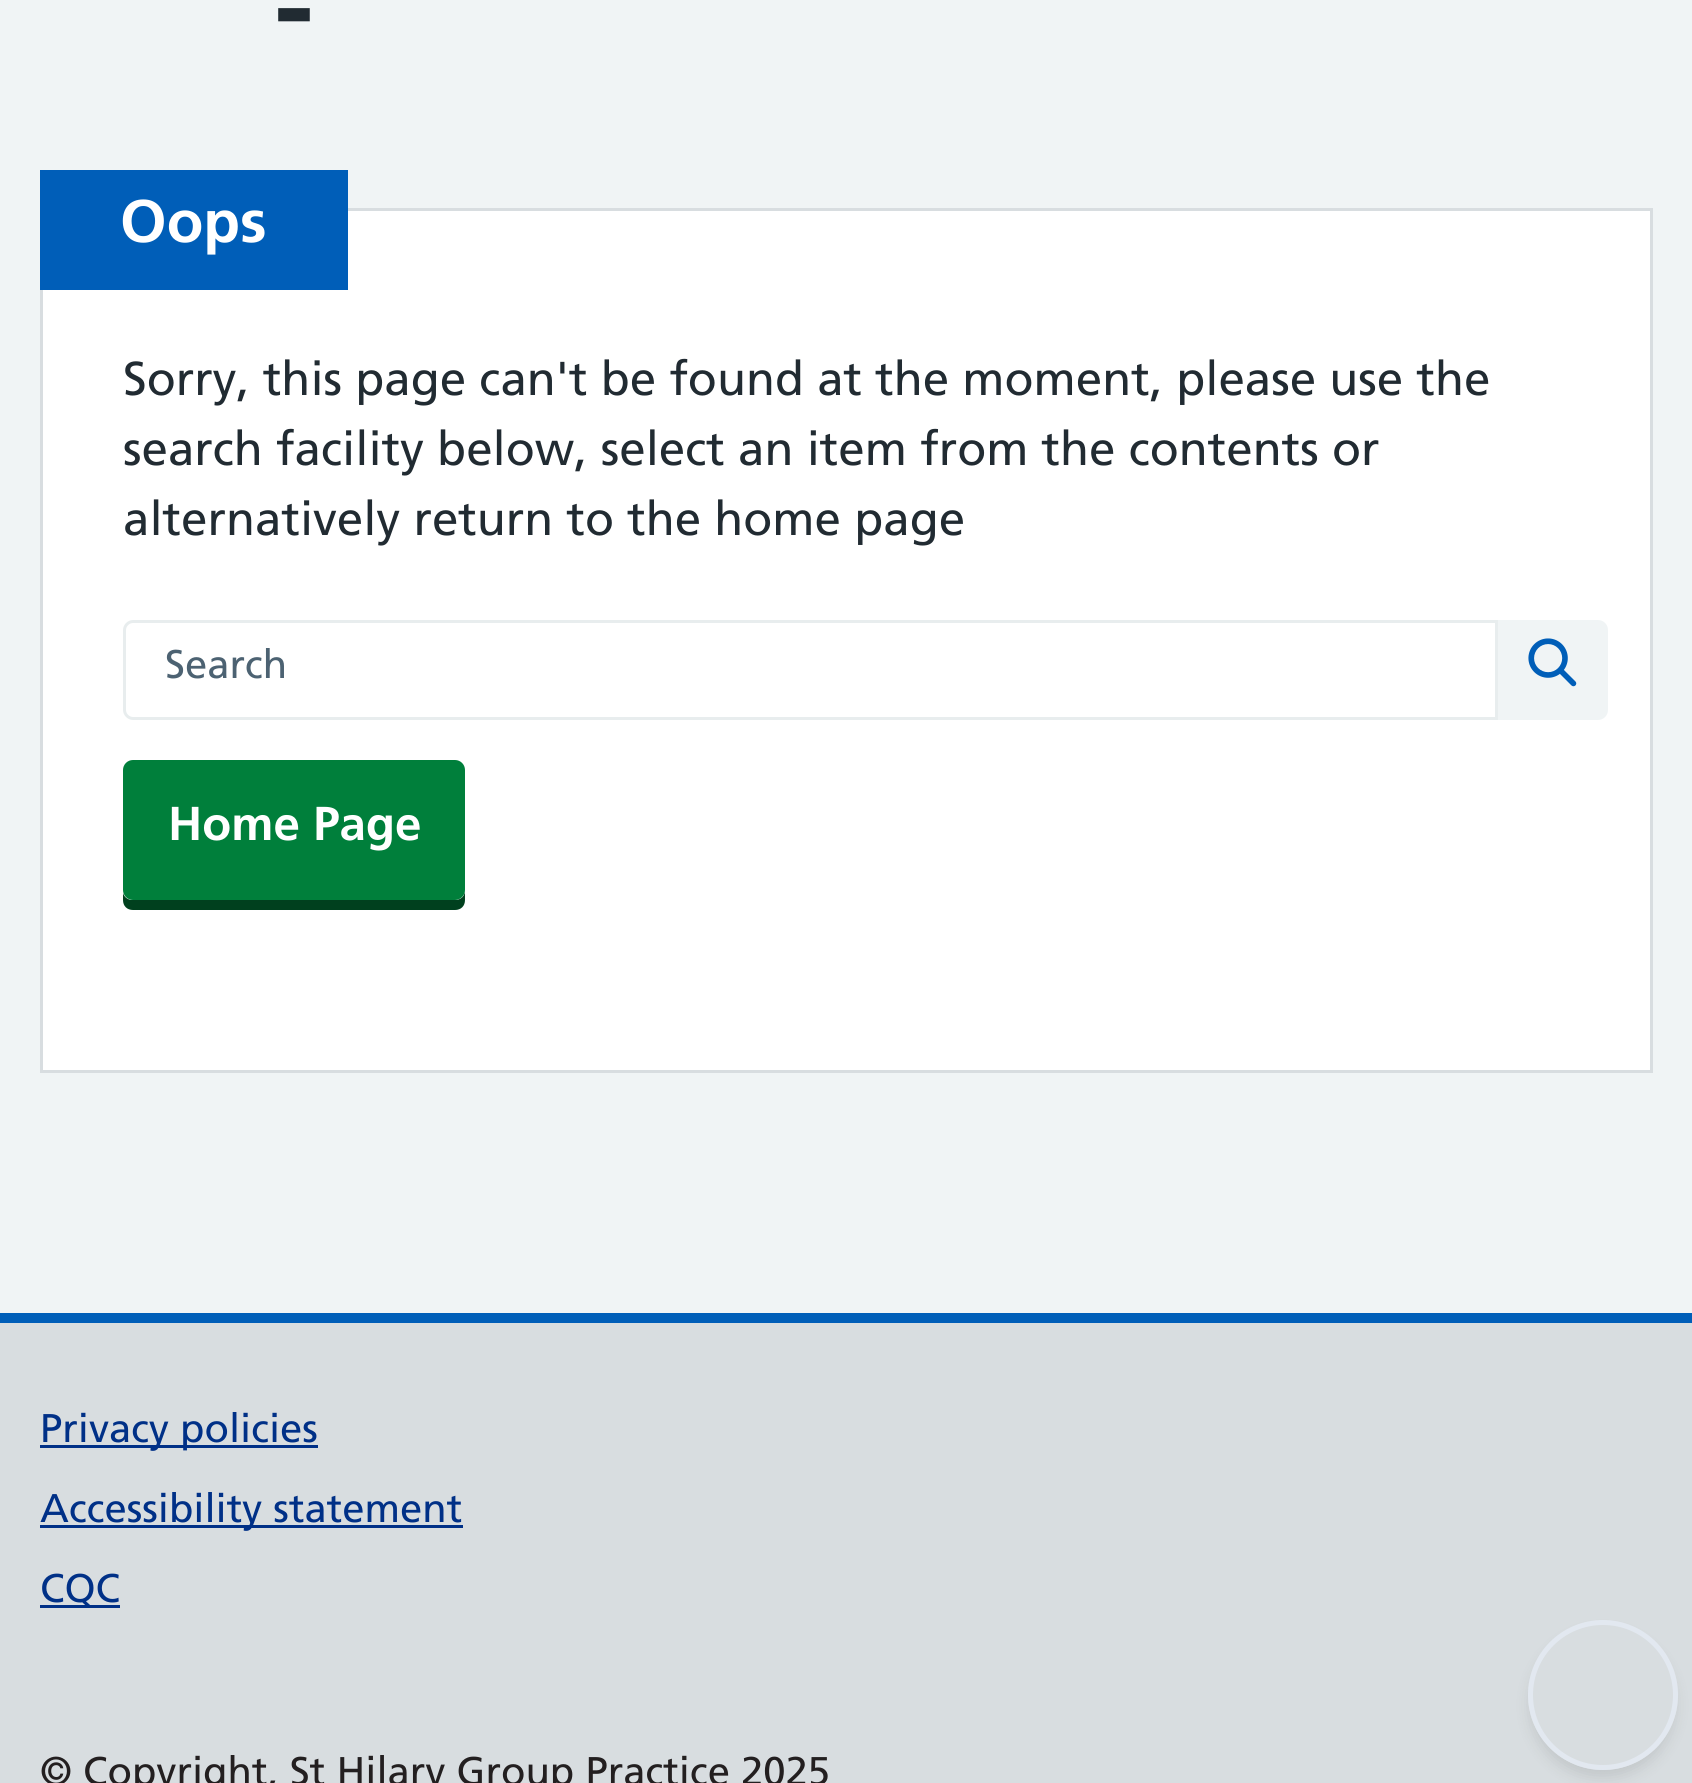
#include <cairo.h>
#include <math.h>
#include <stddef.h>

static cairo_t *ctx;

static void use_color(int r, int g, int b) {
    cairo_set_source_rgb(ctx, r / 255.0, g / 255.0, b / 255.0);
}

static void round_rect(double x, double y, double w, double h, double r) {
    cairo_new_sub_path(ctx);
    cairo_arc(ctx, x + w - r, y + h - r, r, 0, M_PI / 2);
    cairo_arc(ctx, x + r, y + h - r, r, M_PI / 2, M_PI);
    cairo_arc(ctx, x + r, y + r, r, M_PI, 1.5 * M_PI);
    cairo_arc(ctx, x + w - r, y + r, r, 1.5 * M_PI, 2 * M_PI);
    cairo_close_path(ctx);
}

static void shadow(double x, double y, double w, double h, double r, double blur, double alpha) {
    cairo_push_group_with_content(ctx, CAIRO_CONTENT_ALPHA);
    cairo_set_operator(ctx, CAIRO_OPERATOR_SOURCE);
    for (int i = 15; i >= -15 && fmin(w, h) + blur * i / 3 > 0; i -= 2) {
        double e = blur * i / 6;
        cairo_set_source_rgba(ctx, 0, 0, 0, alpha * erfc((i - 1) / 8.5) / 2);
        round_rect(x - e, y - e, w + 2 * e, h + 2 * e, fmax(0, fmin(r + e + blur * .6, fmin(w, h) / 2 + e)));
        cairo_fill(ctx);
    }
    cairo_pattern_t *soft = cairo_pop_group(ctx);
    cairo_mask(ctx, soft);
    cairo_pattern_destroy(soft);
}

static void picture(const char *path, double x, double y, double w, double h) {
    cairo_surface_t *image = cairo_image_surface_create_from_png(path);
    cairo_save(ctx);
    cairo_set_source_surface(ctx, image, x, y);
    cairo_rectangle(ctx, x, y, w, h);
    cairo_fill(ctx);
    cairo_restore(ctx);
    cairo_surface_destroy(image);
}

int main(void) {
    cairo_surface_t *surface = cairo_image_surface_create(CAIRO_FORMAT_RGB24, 1692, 1783);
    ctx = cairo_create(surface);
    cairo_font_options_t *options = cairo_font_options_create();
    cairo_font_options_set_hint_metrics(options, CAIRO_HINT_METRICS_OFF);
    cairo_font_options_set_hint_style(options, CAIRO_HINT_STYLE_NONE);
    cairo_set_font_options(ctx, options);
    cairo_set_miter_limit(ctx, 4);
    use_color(240, 244, 245);
    cairo_paint(ctx);
    cairo_select_font_face(ctx, "Frutiger", CAIRO_FONT_SLANT_NORMAL, CAIRO_FONT_WEIGHT_BOLD);
    cairo_set_font_size(ctx, 120);
    use_color(33, 43, 50);
    cairo_move_to(ctx, 274, 47);
    cairo_show_text(ctx, "-");
    use_color(255, 255, 255);
    cairo_rectangle(ctx, 41.5, 209.5, 1610, 862);
    cairo_fill_preserve(ctx);
    use_color(216, 221, 224);
    cairo_set_line_width(ctx, 3);
    cairo_stroke(ctx);
    use_color(0, 94, 184);
    cairo_rectangle(ctx, 40, 170, 308, 120);
    cairo_fill(ctx);
    cairo_set_font_size(ctx, 60);
    use_color(255, 255, 255);
    cairo_move_to(ctx, 120, 242);
    cairo_show_text(ctx, "Oops");
    cairo_select_font_face(ctx, "Frutiger", CAIRO_FONT_SLANT_NORMAL, CAIRO_FONT_WEIGHT_NORMAL);
    cairo_set_font_size(ctx, 47.5);
    use_color(33, 43, 50);
    cairo_move_to(ctx, 123, 395);
    cairo_show_text(ctx, "Sorry, this page can't be found at the moment, please use the");
    cairo_move_to(ctx, 123, 465);
    cairo_show_text(ctx, "search facility below, select an item from the contents or");
    cairo_move_to(ctx, 123, 535);
    cairo_show_text(ctx, "alternatively return to the home page");
    cairo_new_path(ctx);
    cairo_move_to(ctx, 133, 621.5);
    cairo_line_to(ctx, 1496.5, 621.5);
    cairo_line_to(ctx, 1496.5, 718.5);
    cairo_line_to(ctx, 133, 718.5);
    cairo_curve_to(ctx, 128.5, 718.5, 124.5, 714.5, 124.5, 710);
    cairo_line_to(ctx, 124.5, 630);
    cairo_curve_to(ctx, 124.5, 625.5, 128.5, 621.5, 133, 621.5);
    cairo_close_path(ctx);
    use_color(232, 237, 238);
    cairo_stroke(ctx);
    cairo_set_font_size(ctx, 40);
    use_color(76, 98, 114);
    cairo_move_to(ctx, 165, 678);
    cairo_show_text(ctx, "Search");
    use_color(240, 244, 245);
    cairo_new_path(ctx);
    cairo_move_to(ctx, 1498, 620);
    cairo_line_to(ctx, 1598, 620);
    cairo_curve_to(ctx, 1603.5, 620, 1608, 624.5, 1608, 630);
    cairo_line_to(ctx, 1608, 710);
    cairo_curve_to(ctx, 1608, 715.5, 1603.5, 720, 1598, 720);
    cairo_line_to(ctx, 1498, 720);
    cairo_close_path(ctx);
    cairo_fill(ctx);
    picture("img1.png", 1528, 638, 49, 49);
    use_color(0, 64, 30);
    cairo_new_path(ctx);
    cairo_move_to(ctx, 123, 893);
    cairo_line_to(ctx, 123, 900);
    cairo_curve_to(ctx, 123, 906, 127, 910, 133, 910);
    cairo_line_to(ctx, 455, 910);
    cairo_curve_to(ctx, 461, 910, 465, 906, 465, 900);
    cairo_line_to(ctx, 465, 890);
    cairo_curve_to(ctx, 465, 896, 461, 900, 455, 900);
    cairo_line_to(ctx, 132, 900);
    cairo_curve_to(ctx, 128, 900, 124, 897, 123, 893);
    cairo_close_path(ctx);
    cairo_fill(ctx);
    use_color(0, 127, 59);
    round_rect(123, 760, 342, 140, 10);
    cairo_fill(ctx);
    cairo_select_font_face(ctx, "Frutiger", CAIRO_FONT_SLANT_NORMAL, CAIRO_FONT_WEIGHT_BOLD);
    cairo_set_font_size(ctx, 47.5);
    use_color(255, 255, 255);
    cairo_move_to(ctx, 168, 840);
    cairo_show_text(ctx, "Home Page");
    use_color(216, 221, 224);
    cairo_rectangle(ctx, 0, 1323, 1692, 460);
    cairo_fill(ctx);
    use_color(0, 94, 184);
    cairo_rectangle(ctx, 0, 1313, 1692, 10);
    cairo_fill(ctx);
    use_color(0, 48, 135);
    cairo_rectangle(ctx, 40, 1445, 278, 3);
    cairo_fill(ctx);
    cairo_select_font_face(ctx, "Frutiger", CAIRO_FONT_SLANT_NORMAL, CAIRO_FONT_WEIGHT_NORMAL);
    cairo_set_font_size(ctx, 40);
    cairo_move_to(ctx, 40, 1442);
    cairo_show_text(ctx, "Privacy policies");
    cairo_rectangle(ctx, 40, 1525, 423, 3);
    cairo_fill(ctx);
    cairo_move_to(ctx, 40, 1522);
    cairo_show_text(ctx, "Accessibility statement");
    cairo_rectangle(ctx, 40, 1605, 80, 3);
    cairo_fill(ctx);
    cairo_move_to(ctx, 40, 1602);
    cairo_show_text(ctx, "CQC");
    use_color(35, 31, 32);
    cairo_move_to(ctx, 40, 1785);
    cairo_show_text(ctx, "© Copyright, St Hilary Group Practice 2025");
    cairo_save(ctx);
    cairo_set_fill_rule(ctx, CAIRO_FILL_RULE_EVEN_ODD);
    cairo_new_path(ctx);
    cairo_move_to(ctx, 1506, 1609);
    cairo_line_to(ctx, 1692, 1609);
    cairo_line_to(ctx, 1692, 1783);
    cairo_line_to(ctx, 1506, 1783);
    cairo_close_path(ctx);
    cairo_move_to(ctx, 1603, 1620);
    cairo_curve_to(ctx, 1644.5, 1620, 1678, 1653.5, 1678, 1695);
    cairo_curve_to(ctx, 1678, 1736.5, 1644.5, 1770, 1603, 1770);
    cairo_curve_to(ctx, 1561.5, 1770, 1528, 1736.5, 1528, 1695);
    cairo_curve_to(ctx, 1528, 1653.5, 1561.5, 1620, 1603, 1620);
    cairo_close_path(ctx);
    cairo_clip(ctx);
    use_color(0, 0, 0);
    shadow(1530, 1633, 145, 145, 72.5, 7.5, 0.1);
    cairo_restore(ctx);
    cairo_arc(ctx, 1603, 1695, 72.5, 0, 2 * M_PI);
    use_color(226, 232, 240);
    cairo_set_line_width(ctx, 5);
    cairo_stroke(ctx);
    cairo_surface_write_to_png(surface, "result.png");
    cairo_font_options_destroy(options);
    cairo_destroy(ctx);
    cairo_surface_destroy(surface);
    return 0;
}
